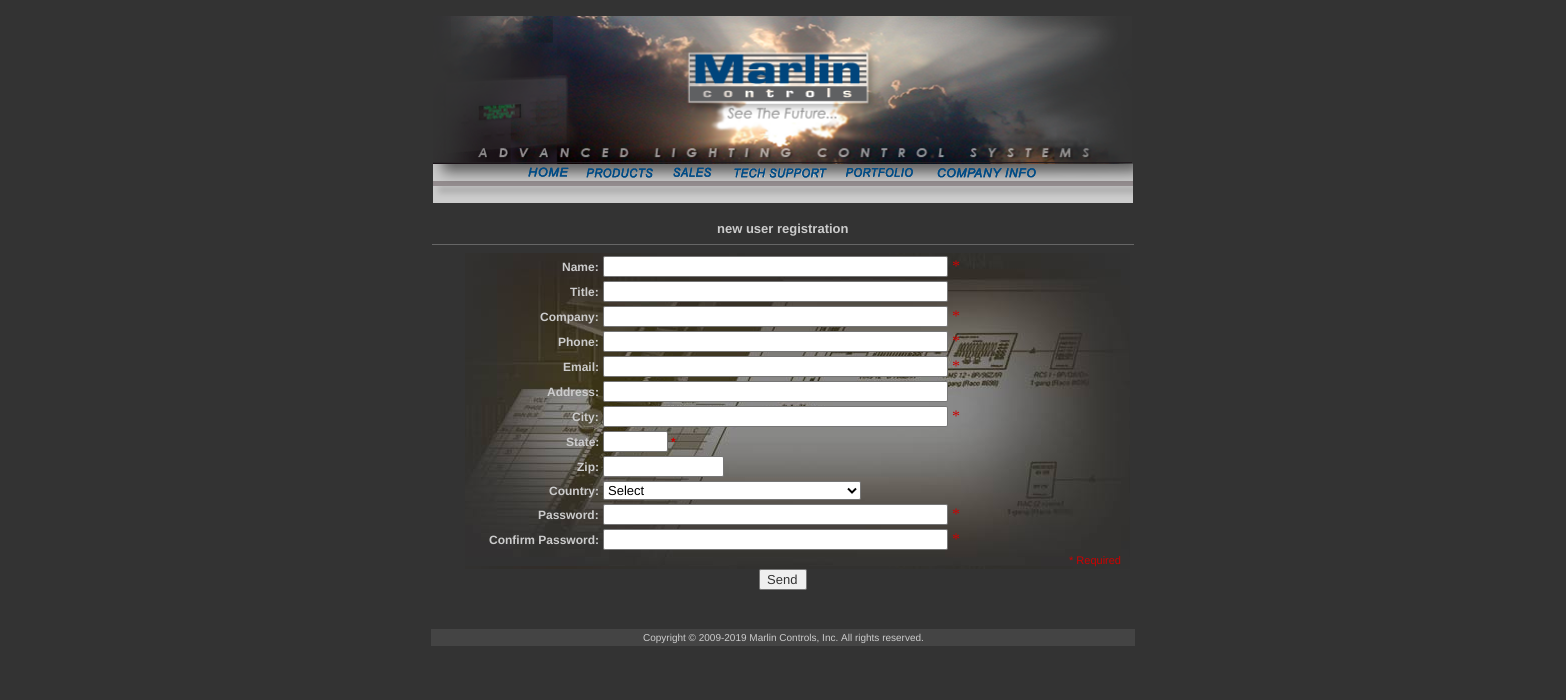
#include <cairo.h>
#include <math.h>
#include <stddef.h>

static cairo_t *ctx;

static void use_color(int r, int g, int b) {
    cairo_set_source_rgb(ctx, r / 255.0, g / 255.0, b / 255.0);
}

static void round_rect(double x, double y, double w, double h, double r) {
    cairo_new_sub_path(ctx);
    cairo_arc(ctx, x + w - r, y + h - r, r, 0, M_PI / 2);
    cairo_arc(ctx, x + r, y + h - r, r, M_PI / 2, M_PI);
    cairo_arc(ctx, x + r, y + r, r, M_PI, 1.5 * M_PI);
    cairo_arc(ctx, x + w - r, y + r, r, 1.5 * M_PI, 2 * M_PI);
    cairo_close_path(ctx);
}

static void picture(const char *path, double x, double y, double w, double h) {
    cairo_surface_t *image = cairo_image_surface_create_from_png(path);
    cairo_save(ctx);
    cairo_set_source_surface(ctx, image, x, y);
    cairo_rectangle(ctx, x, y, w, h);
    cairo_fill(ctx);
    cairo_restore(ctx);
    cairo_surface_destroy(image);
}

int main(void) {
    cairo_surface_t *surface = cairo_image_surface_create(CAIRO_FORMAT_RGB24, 1566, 700);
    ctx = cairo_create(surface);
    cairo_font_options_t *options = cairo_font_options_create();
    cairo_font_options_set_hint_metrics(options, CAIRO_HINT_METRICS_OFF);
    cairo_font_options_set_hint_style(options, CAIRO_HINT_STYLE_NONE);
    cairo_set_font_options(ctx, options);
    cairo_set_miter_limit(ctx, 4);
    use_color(51, 51, 51);
    cairo_paint(ctx);
    picture("img1.png", 433, 16, 699, 147);
    picture("img2.png", 433, 163, 82, 40);
    picture("img3.png", 515, 163, 62, 40);
    picture("img4.png", 577, 163, 86, 40);
    picture("img5.png", 663, 163, 60, 40);
    picture("img6.png", 723, 163, 113, 40);
    picture("img7.png", 836, 163, 91, 40);
    picture("img8.png", 927, 163, 120, 40);
    picture("img9.png", 1047, 163, 86, 40);
    cairo_select_font_face(ctx, "Liberation Sans", CAIRO_FONT_SLANT_NORMAL, CAIRO_FONT_WEIGHT_BOLD);
    cairo_set_font_size(ctx, 13);
    use_color(204, 204, 204);
    cairo_move_to(ctx, 717, 233);
    cairo_show_text(ctx, "new user registration");
    use_color(102, 102, 102);
    cairo_rectangle(ctx, 432, 244, 702, 1);
    cairo_fill(ctx);
    picture("img10.png", 465, 253, 665, 316);
    cairo_set_font_size(ctx, 12);
    use_color(204, 204, 204);
    cairo_move_to(ctx, 562, 271);
    cairo_show_text(ctx, "Name:");
    use_color(255, 255, 255);
    round_rect(603.5, 256.5, 344, 20, 1.5);
    cairo_fill_preserve(ctx);
    use_color(118, 118, 118);
    cairo_set_line_width(ctx, 1);
    cairo_stroke(ctx);
    cairo_select_font_face(ctx, "Liberation Serif", CAIRO_FONT_SLANT_NORMAL, CAIRO_FONT_WEIGHT_NORMAL);
    cairo_set_font_size(ctx, 16);
    use_color(204, 0, 0);
    cairo_move_to(ctx, 952, 271);
    cairo_show_text(ctx, "*");
    cairo_select_font_face(ctx, "Liberation Sans", CAIRO_FONT_SLANT_NORMAL, CAIRO_FONT_WEIGHT_BOLD);
    cairo_set_font_size(ctx, 12);
    use_color(204, 204, 204);
    cairo_move_to(ctx, 570, 296);
    cairo_show_text(ctx, "Title:");
    use_color(255, 255, 255);
    round_rect(603.5, 281.5, 344, 20, 1.5);
    cairo_fill_preserve(ctx);
    use_color(118, 118, 118);
    cairo_stroke(ctx);
    use_color(204, 204, 204);
    cairo_move_to(ctx, 540, 321);
    cairo_show_text(ctx, "Company:");
    use_color(255, 255, 255);
    round_rect(603.5, 306.5, 344, 20, 1.5);
    cairo_fill_preserve(ctx);
    use_color(118, 118, 118);
    cairo_stroke(ctx);
    cairo_select_font_face(ctx, "Liberation Serif", CAIRO_FONT_SLANT_NORMAL, CAIRO_FONT_WEIGHT_NORMAL);
    cairo_set_font_size(ctx, 16);
    use_color(204, 0, 0);
    cairo_move_to(ctx, 952, 321);
    cairo_show_text(ctx, "*");
    cairo_select_font_face(ctx, "Liberation Sans", CAIRO_FONT_SLANT_NORMAL, CAIRO_FONT_WEIGHT_BOLD);
    cairo_set_font_size(ctx, 12);
    use_color(204, 204, 204);
    cairo_move_to(ctx, 558, 346);
    cairo_show_text(ctx, "Phone:");
    use_color(255, 255, 255);
    round_rect(603.5, 331.5, 344, 20, 1.5);
    cairo_fill_preserve(ctx);
    use_color(118, 118, 118);
    cairo_stroke(ctx);
    cairo_select_font_face(ctx, "Liberation Serif", CAIRO_FONT_SLANT_NORMAL, CAIRO_FONT_WEIGHT_NORMAL);
    cairo_set_font_size(ctx, 16);
    use_color(204, 0, 0);
    cairo_move_to(ctx, 952, 346);
    cairo_show_text(ctx, "*");
    cairo_select_font_face(ctx, "Liberation Sans", CAIRO_FONT_SLANT_NORMAL, CAIRO_FONT_WEIGHT_BOLD);
    cairo_set_font_size(ctx, 12);
    use_color(204, 204, 204);
    cairo_move_to(ctx, 563, 371);
    cairo_show_text(ctx, "Email:");
    use_color(255, 255, 255);
    round_rect(603.5, 356.5, 344, 20, 1.5);
    cairo_fill_preserve(ctx);
    use_color(118, 118, 118);
    cairo_stroke(ctx);
    cairo_select_font_face(ctx, "Liberation Serif", CAIRO_FONT_SLANT_NORMAL, CAIRO_FONT_WEIGHT_NORMAL);
    cairo_set_font_size(ctx, 16);
    use_color(204, 0, 0);
    cairo_move_to(ctx, 952, 371);
    cairo_show_text(ctx, "*");
    cairo_select_font_face(ctx, "Liberation Sans", CAIRO_FONT_SLANT_NORMAL, CAIRO_FONT_WEIGHT_BOLD);
    cairo_set_font_size(ctx, 12);
    use_color(204, 204, 204);
    cairo_move_to(ctx, 547, 396);
    cairo_show_text(ctx, "Address:");
    use_color(255, 255, 255);
    round_rect(603.5, 381.5, 344, 20, 1.5);
    cairo_fill_preserve(ctx);
    use_color(118, 118, 118);
    cairo_stroke(ctx);
    use_color(204, 204, 204);
    cairo_move_to(ctx, 572, 421);
    cairo_show_text(ctx, "City:");
    use_color(255, 255, 255);
    round_rect(603.5, 406.5, 344, 20, 1.5);
    cairo_fill_preserve(ctx);
    use_color(118, 118, 118);
    cairo_stroke(ctx);
    cairo_select_font_face(ctx, "Liberation Serif", CAIRO_FONT_SLANT_NORMAL, CAIRO_FONT_WEIGHT_NORMAL);
    cairo_set_font_size(ctx, 16);
    use_color(204, 0, 0);
    cairo_move_to(ctx, 952, 421);
    cairo_show_text(ctx, "*");
    cairo_select_font_face(ctx, "Liberation Sans", CAIRO_FONT_SLANT_NORMAL, CAIRO_FONT_WEIGHT_BOLD);
    cairo_set_font_size(ctx, 12);
    use_color(204, 204, 204);
    cairo_move_to(ctx, 566, 446);
    cairo_show_text(ctx, "State:");
    use_color(255, 255, 255);
    round_rect(603.5, 431.5, 64, 20, 1.5);
    cairo_fill_preserve(ctx);
    use_color(118, 118, 118);
    cairo_stroke(ctx);
    use_color(204, 0, 0);
    cairo_move_to(ctx, 671, 446);
    cairo_show_text(ctx, "*");
    use_color(204, 204, 204);
    cairo_move_to(ctx, 577, 471);
    cairo_show_text(ctx, "Zip:");
    use_color(255, 255, 255);
    round_rect(603.5, 456.5, 120, 20, 1.5);
    cairo_fill_preserve(ctx);
    use_color(118, 118, 118);
    cairo_stroke(ctx);
    use_color(204, 204, 204);
    cairo_move_to(ctx, 549, 495);
    cairo_show_text(ctx, "Country:");
    use_color(255, 255, 255);
    round_rect(603.5, 481.5, 257, 18, 1.5);
    cairo_fill_preserve(ctx);
    use_color(118, 118, 118);
    cairo_stroke(ctx);
    cairo_new_path(ctx);
    cairo_move_to(ctx, 848, 488.5);
    cairo_line_to(ctx, 852, 492.5);
    cairo_line_to(ctx, 856, 488.5);
    use_color(0, 0, 0);
    cairo_set_line_width(ctx, 2);
    cairo_stroke(ctx);
    cairo_select_font_face(ctx, "Liberation Sans", CAIRO_FONT_SLANT_NORMAL, CAIRO_FONT_WEIGHT_NORMAL);
    cairo_set_font_size(ctx, 13);
    cairo_move_to(ctx, 608, 495);
    cairo_show_text(ctx, "Select");
    cairo_select_font_face(ctx, "Liberation Sans", CAIRO_FONT_SLANT_NORMAL, CAIRO_FONT_WEIGHT_BOLD);
    cairo_set_font_size(ctx, 12);
    use_color(204, 204, 204);
    cairo_move_to(ctx, 538, 519);
    cairo_show_text(ctx, "Password:");
    use_color(255, 255, 255);
    round_rect(603.5, 504.5, 344, 20, 1.5);
    cairo_fill_preserve(ctx);
    use_color(118, 118, 118);
    cairo_set_line_width(ctx, 1);
    cairo_stroke(ctx);
    cairo_select_font_face(ctx, "Liberation Serif", CAIRO_FONT_SLANT_NORMAL, CAIRO_FONT_WEIGHT_NORMAL);
    cairo_set_font_size(ctx, 16);
    use_color(204, 0, 0);
    cairo_move_to(ctx, 952, 519);
    cairo_show_text(ctx, "*");
    cairo_select_font_face(ctx, "Liberation Sans", CAIRO_FONT_SLANT_NORMAL, CAIRO_FONT_WEIGHT_BOLD);
    cairo_set_font_size(ctx, 12);
    use_color(204, 204, 204);
    cairo_move_to(ctx, 489, 544);
    cairo_show_text(ctx, "Confirm Password:");
    use_color(255, 255, 255);
    round_rect(603.5, 529.5, 344, 20, 1.5);
    cairo_fill_preserve(ctx);
    use_color(118, 118, 118);
    cairo_stroke(ctx);
    cairo_select_font_face(ctx, "Liberation Serif", CAIRO_FONT_SLANT_NORMAL, CAIRO_FONT_WEIGHT_NORMAL);
    cairo_set_font_size(ctx, 16);
    use_color(204, 0, 0);
    cairo_move_to(ctx, 952, 544);
    cairo_show_text(ctx, "*");
    cairo_select_font_face(ctx, "Liberation Sans", CAIRO_FONT_SLANT_NORMAL, CAIRO_FONT_WEIGHT_NORMAL);
    cairo_set_font_size(ctx, 11);
    cairo_move_to(ctx, 1069, 564);
    cairo_show_text(ctx, "* Required");
    use_color(239, 239, 239);
    round_rect(759.5, 569.5, 47, 20, 1.5);
    cairo_fill_preserve(ctx);
    use_color(118, 118, 118);
    cairo_stroke(ctx);
    cairo_set_font_size(ctx, 13);
    use_color(51, 51, 51);
    cairo_move_to(ctx, 767, 584);
    cairo_show_text(ctx, "Send");
    use_color(68, 68, 68);
    cairo_rectangle(ctx, 431, 629, 704, 17);
    cairo_fill(ctx);
    cairo_set_font_size(ctx, 10);
    use_color(204, 204, 204);
    cairo_move_to(ctx, 643, 641);
    cairo_show_text(ctx, "Copyright © 2009-2019 Marlin Controls, Inc. All rights reserved.");
    cairo_surface_write_to_png(surface, "result.png");
    cairo_font_options_destroy(options);
    cairo_destroy(ctx);
    cairo_surface_destroy(surface);
    return 0;
}
